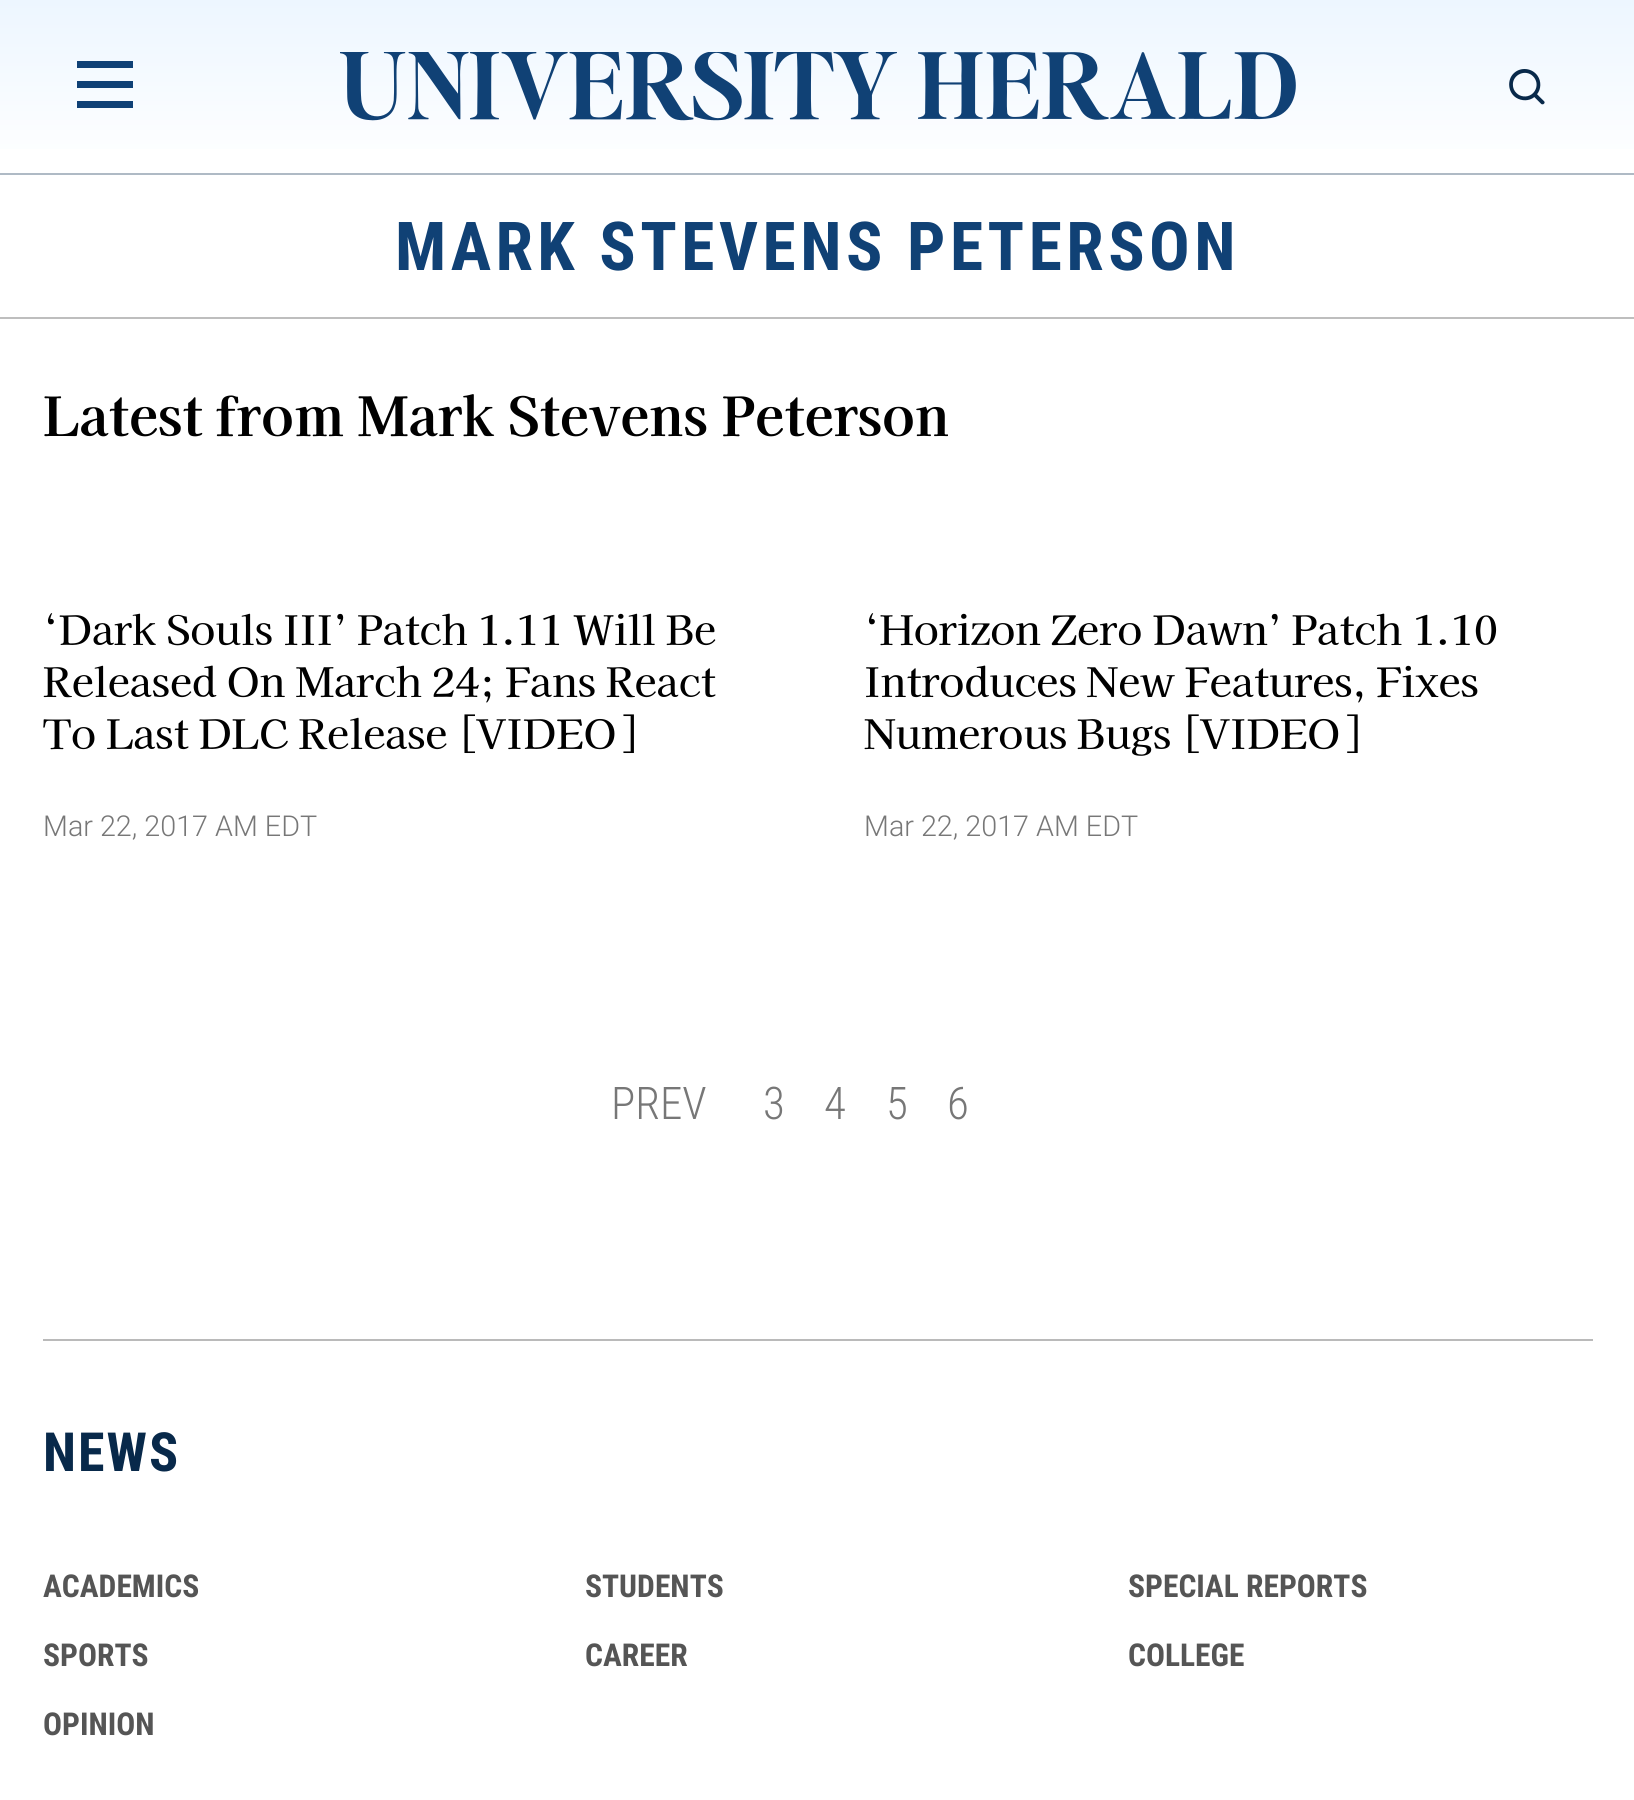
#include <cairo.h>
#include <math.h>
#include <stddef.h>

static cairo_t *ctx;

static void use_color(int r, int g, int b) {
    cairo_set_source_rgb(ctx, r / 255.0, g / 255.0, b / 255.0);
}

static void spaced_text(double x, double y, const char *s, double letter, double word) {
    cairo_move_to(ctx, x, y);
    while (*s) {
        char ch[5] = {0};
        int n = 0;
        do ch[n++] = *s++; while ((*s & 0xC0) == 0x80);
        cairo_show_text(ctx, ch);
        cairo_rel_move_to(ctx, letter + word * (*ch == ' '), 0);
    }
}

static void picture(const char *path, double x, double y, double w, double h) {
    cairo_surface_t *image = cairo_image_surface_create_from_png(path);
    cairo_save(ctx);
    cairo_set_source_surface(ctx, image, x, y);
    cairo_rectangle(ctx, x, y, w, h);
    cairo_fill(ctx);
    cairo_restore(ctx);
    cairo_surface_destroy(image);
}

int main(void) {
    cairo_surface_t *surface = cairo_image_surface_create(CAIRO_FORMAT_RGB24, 1634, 1800);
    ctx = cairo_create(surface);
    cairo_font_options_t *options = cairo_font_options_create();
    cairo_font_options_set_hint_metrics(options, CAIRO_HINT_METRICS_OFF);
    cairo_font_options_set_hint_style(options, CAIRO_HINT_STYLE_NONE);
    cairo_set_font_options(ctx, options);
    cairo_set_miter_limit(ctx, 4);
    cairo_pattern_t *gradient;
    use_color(255, 255, 255);
    cairo_paint(ctx);
    use_color(175, 186, 197);
    cairo_rectangle(ctx, 0, 173, 1634, 2);
    cairo_fill(ctx);
    gradient = cairo_pattern_create_linear(818, 0, 818, 173);
    cairo_pattern_add_color_stop_rgba(gradient, 0, 0.929, 0.965, 1, 1);
    cairo_pattern_add_color_stop_rgba(gradient, 1, 1, 1, 1, 1);
    cairo_set_source(ctx, gradient);
    cairo_pattern_destroy(gradient);
    cairo_rectangle(ctx, 0, 0, 1634, 149);
    cairo_fill(ctx);
    picture("img1.png", 340, 52, 956, 69);
    use_color(15, 65, 118);
    cairo_rectangle(ctx, 77, 61, 56, 7);
    cairo_fill(ctx);
    cairo_rectangle(ctx, 77, 81, 56, 7);
    cairo_fill(ctx);
    cairo_rectangle(ctx, 77, 101, 56, 7);
    cairo_fill(ctx);
    picture("img2.png", 1509, 69, 36, 36);
    use_color(190, 190, 190);
    cairo_rectangle(ctx, 0, 317, 1634, 2);
    cairo_fill(ctx);
    cairo_select_font_face(ctx, "Roboto Condensed", CAIRO_FONT_SLANT_NORMAL, CAIRO_FONT_WEIGHT_BOLD);
    cairo_set_font_size(ctx, 67.5);
    use_color(16, 65, 117);
    spaced_text(395, 270, "MARK STEVENS PETERSON", 4.5, 0);
    cairo_select_font_face(ctx, "Kaisei Decol", CAIRO_FONT_SLANT_NORMAL, CAIRO_FONT_WEIGHT_BOLD);
    cairo_set_font_size(ctx, 54);
    use_color(0, 0, 0);
    cairo_move_to(ctx, 43, 436);
    cairo_show_text(ctx, "Latest from Mark Stevens Peterson");
    cairo_select_font_face(ctx, "Kaisei Decol Medium", CAIRO_FONT_SLANT_NORMAL, CAIRO_FONT_WEIGHT_NORMAL);
    cairo_set_font_size(ctx, 40.5);
    cairo_move_to(ctx, 43, 645);
    cairo_show_text(ctx, "‘Dark Souls III’ Patch 1.11 Will Be");
    cairo_move_to(ctx, 43, 697);
    cairo_show_text(ctx, "Released On March 24; Fans React");
    cairo_move_to(ctx, 43, 749);
    cairo_show_text(ctx, "To Last DLC Release [VIDEO]");
    cairo_select_font_face(ctx, "Roboto Light", CAIRO_FONT_SLANT_NORMAL, CAIRO_FONT_WEIGHT_NORMAL);
    cairo_set_font_size(ctx, 28.75);
    use_color(119, 119, 119);
    cairo_move_to(ctx, 43, 836);
    cairo_show_text(ctx, "Mar 22, 2017 AM EDT");
    cairo_select_font_face(ctx, "Kaisei Decol Medium", CAIRO_FONT_SLANT_NORMAL, CAIRO_FONT_WEIGHT_NORMAL);
    cairo_set_font_size(ctx, 40.5);
    use_color(0, 0, 0);
    cairo_move_to(ctx, 864, 645);
    cairo_show_text(ctx, "‘Horizon Zero Dawn’ Patch 1.10");
    cairo_move_to(ctx, 864, 697);
    cairo_show_text(ctx, "Introduces New Features, Fixes");
    cairo_move_to(ctx, 864, 749);
    cairo_show_text(ctx, "Numerous Bugs [VIDEO]");
    cairo_select_font_face(ctx, "Roboto Light", CAIRO_FONT_SLANT_NORMAL, CAIRO_FONT_WEIGHT_NORMAL);
    cairo_set_font_size(ctx, 28.75);
    use_color(119, 119, 119);
    cairo_move_to(ctx, 864, 836);
    cairo_show_text(ctx, "Mar 22, 2017 AM EDT");
    cairo_select_font_face(ctx, "Roboto Condensed Light", CAIRO_FONT_SLANT_NORMAL, CAIRO_FONT_WEIGHT_NORMAL);
    cairo_set_font_size(ctx, 45);
    cairo_move_to(ctx, 611, 1119);
    cairo_show_text(ctx, "PREV");
    cairo_move_to(ctx, 763, 1119);
    cairo_show_text(ctx, "3");
    cairo_move_to(ctx, 824, 1119);
    cairo_show_text(ctx, "4");
    cairo_move_to(ctx, 886, 1119);
    cairo_show_text(ctx, "5");
    cairo_move_to(ctx, 947, 1119);
    cairo_show_text(ctx, "6");
    use_color(186, 186, 186);
    cairo_rectangle(ctx, 43, 1339, 1550, 2);
    cairo_fill(ctx);
    cairo_select_font_face(ctx, "Roboto Condensed", CAIRO_FONT_SLANT_NORMAL, CAIRO_FONT_WEIGHT_BOLD);
    cairo_set_font_size(ctx, 54);
    use_color(8, 41, 74);
    spaced_text(43, 1471, "NEWS", 2, 0);
    cairo_set_font_size(ctx, 31.5);
    use_color(85, 85, 85);
    cairo_move_to(ctx, 43, 1597);
    cairo_show_text(ctx, "ACADEMICS");
    cairo_move_to(ctx, 585, 1597);
    cairo_show_text(ctx, "STUDENTS");
    cairo_move_to(ctx, 1128, 1597);
    cairo_show_text(ctx, "SPECIAL REPORTS");
    cairo_move_to(ctx, 43, 1666);
    cairo_show_text(ctx, "SPORTS");
    cairo_move_to(ctx, 585, 1666);
    cairo_show_text(ctx, "CAREER");
    cairo_move_to(ctx, 1128, 1666);
    cairo_show_text(ctx, "COLLEGE");
    cairo_move_to(ctx, 43, 1735);
    cairo_show_text(ctx, "OPINION");
    cairo_surface_write_to_png(surface, "result.png");
    cairo_font_options_destroy(options);
    cairo_destroy(ctx);
    cairo_surface_destroy(surface);
    return 0;
}
